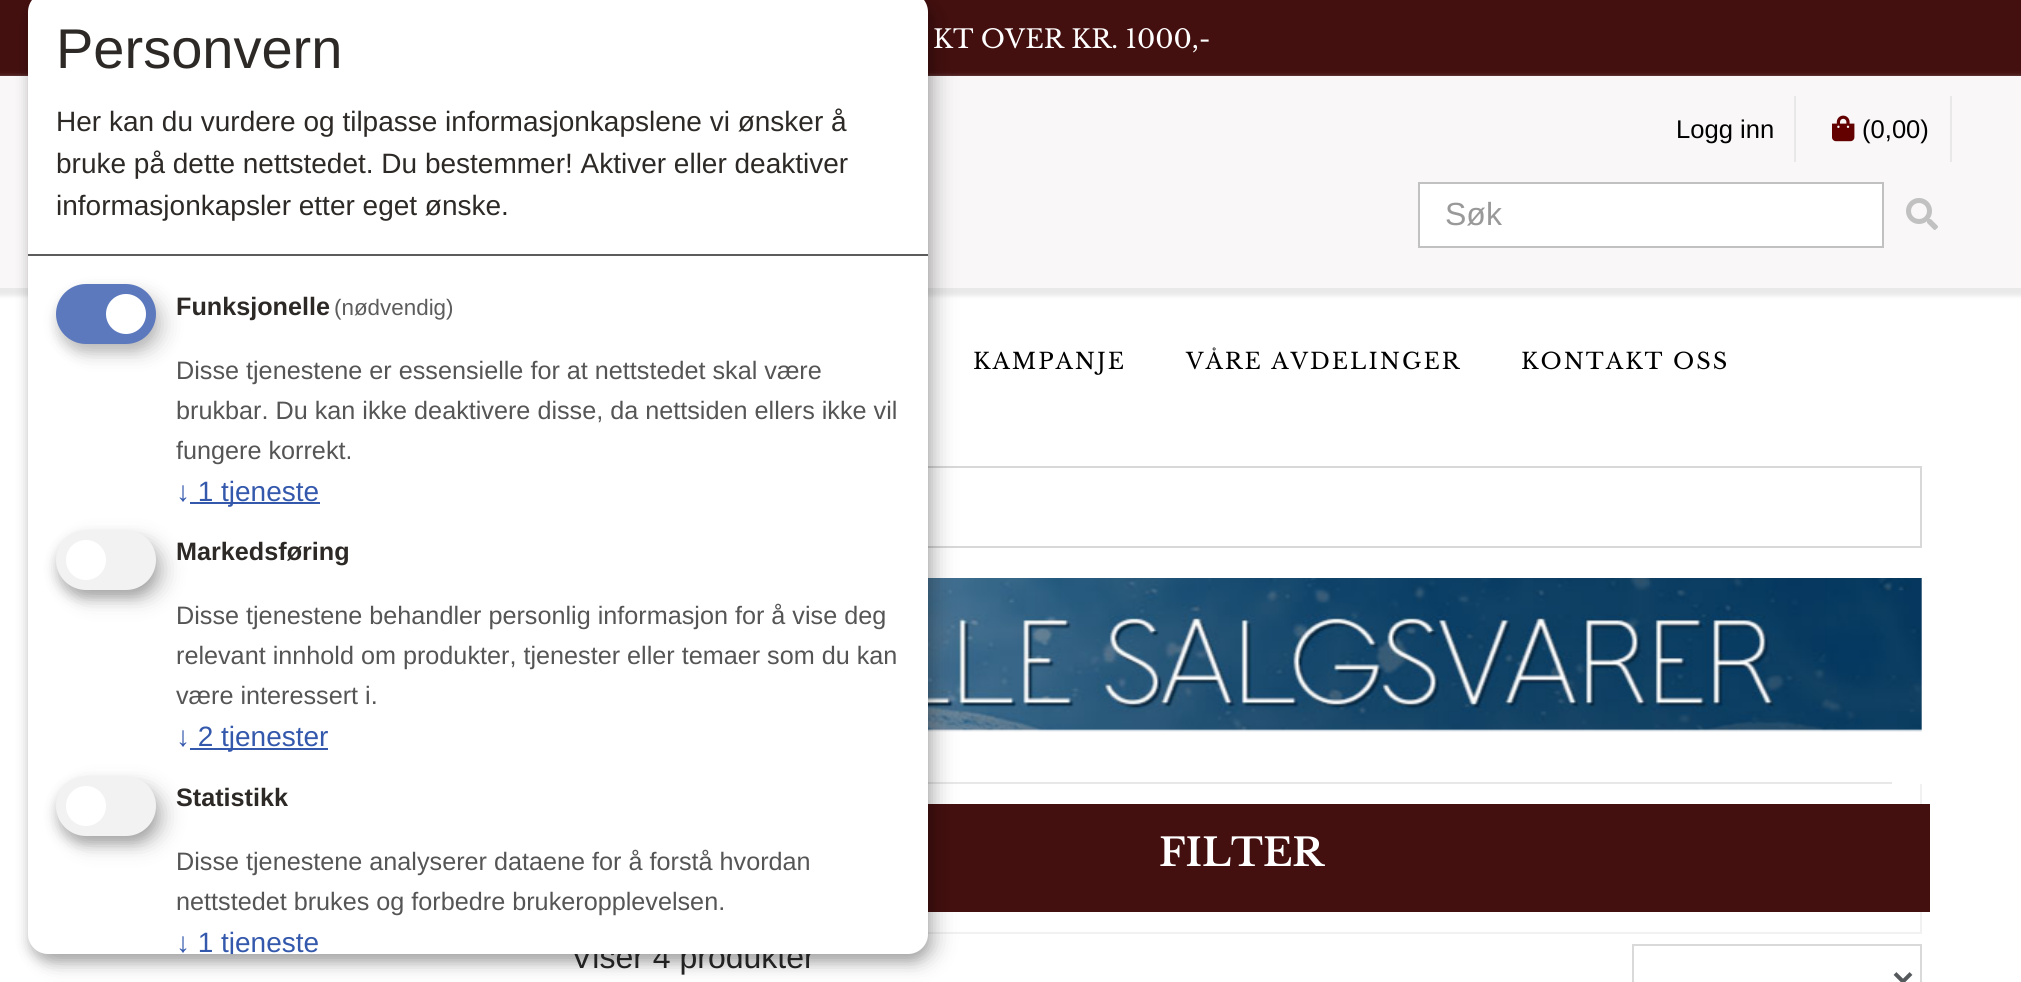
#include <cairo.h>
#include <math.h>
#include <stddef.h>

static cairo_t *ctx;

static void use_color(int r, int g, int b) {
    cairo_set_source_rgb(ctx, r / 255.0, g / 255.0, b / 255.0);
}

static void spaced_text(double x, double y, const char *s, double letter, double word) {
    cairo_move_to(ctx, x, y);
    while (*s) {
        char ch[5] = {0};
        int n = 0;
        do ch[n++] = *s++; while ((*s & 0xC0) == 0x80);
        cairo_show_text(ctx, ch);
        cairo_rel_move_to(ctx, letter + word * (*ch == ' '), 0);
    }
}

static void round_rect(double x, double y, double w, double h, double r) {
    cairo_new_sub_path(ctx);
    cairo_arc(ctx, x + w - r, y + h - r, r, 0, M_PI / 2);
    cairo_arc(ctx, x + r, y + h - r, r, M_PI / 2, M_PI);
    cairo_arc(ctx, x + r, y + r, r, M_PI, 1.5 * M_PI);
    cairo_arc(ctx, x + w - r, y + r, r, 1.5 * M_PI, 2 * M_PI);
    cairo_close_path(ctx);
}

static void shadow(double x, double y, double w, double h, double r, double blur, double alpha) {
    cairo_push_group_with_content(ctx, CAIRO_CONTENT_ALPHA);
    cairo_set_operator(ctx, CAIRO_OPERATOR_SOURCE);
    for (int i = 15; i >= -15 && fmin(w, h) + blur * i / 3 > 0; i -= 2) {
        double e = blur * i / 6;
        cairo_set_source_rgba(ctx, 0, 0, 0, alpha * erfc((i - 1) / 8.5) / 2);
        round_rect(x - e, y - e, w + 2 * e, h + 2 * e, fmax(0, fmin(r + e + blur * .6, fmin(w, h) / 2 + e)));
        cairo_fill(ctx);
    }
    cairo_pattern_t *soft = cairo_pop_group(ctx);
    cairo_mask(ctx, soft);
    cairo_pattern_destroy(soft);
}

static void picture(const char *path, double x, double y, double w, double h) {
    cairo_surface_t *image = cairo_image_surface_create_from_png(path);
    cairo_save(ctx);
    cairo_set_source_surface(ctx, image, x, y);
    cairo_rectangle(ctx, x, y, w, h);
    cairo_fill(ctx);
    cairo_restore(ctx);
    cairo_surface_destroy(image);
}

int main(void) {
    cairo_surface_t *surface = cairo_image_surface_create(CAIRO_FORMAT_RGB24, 2021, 982);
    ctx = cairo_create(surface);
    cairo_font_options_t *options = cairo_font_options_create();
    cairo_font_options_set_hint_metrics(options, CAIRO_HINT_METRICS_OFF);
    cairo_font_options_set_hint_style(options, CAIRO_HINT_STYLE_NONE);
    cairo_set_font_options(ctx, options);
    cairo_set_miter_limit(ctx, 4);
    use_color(255, 255, 255);
    cairo_paint(ctx);
    use_color(68, 15, 15);
    cairo_rectangle(ctx, 0, 0, 2021, 76);
    cairo_fill(ctx);
    use_color(200, 200, 200);
    shadow(-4, 76, 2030, 220, 0, 2, 0.4);
    use_color(249, 247, 247);
    cairo_rectangle(ctx, 0, 76, 2021, 212);
    cairo_fill(ctx);
    cairo_rectangle(ctx, 103, 467, 1818, 80);
    use_color(216, 216, 216);
    cairo_stroke(ctx);
    use_color(232, 232, 232);
    cairo_rectangle(ctx, 928, 782, 964, 2);
    cairo_fill(ctx);
    picture("img3.png", 928, 578, 994, 154);
    use_color(241, 241, 241);
    cairo_rectangle(ctx, 1920, 784, 2, 150);
    cairo_fill(ctx);
    cairo_rectangle(ctx, 928, 932, 994, 2);
    cairo_fill(ctx);
    use_color(68, 15, 15);
    cairo_rectangle(ctx, 928, 804, 1002, 108);
    cairo_fill(ctx);
    use_color(0, 0, 0);
    shadow(38, 2, 900, 962, 20, 10, 0.19);
    shadow(28, 0, 900, 962, 20, 6, 0.2);
    cairo_select_font_face(ctx, "Liberation Sans", CAIRO_FONT_SLANT_NORMAL, CAIRO_FONT_WEIGHT_NORMAL);
    cairo_set_font_size(ctx, 32);
    use_color(34, 34, 34);
    cairo_move_to(ctx, 571, 968);
    cairo_show_text(ctx, "Viser 4 produkter");
    use_color(255, 255, 255);
    round_rect(28, -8, 900, 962, 20);
    cairo_fill(ctx);
    use_color(92, 92, 92);
    cairo_rectangle(ctx, 28, 254, 900, 2);
    cairo_fill(ctx);
    cairo_set_font_size(ctx, 56);
    use_color(44, 41, 38);
    cairo_move_to(ctx, 56, 68);
    cairo_show_text(ctx, "Personvern");
    cairo_set_font_size(ctx, 28);
    cairo_move_to(ctx, 56, 131);
    cairo_show_text(ctx, "Her kan du vurdere og tilpasse informasjonkapslene vi ønsker å");
    cairo_move_to(ctx, 56, 173);
    cairo_show_text(ctx, "bruke på dette nettstedet. Du bestemmer! Aktiver eller deaktiver");
    cairo_move_to(ctx, 56, 215);
    cairo_show_text(ctx, "informasjonkapsler etter eget ønske.");
    use_color(0, 0, 0);
    shadow(66, 294, 100, 60, 30, 10, 0.15);
    use_color(51, 51, 51);
    shadow(56, 292, 100, 60, 30, 6, 0.2);
    use_color(92, 121, 189);
    round_rect(56, 284, 100, 60, 30);
    cairo_fill(ctx);
    use_color(255, 255, 255);
    cairo_arc(ctx, 126, 314, 20, 0, 2 * M_PI);
    cairo_fill(ctx);
    cairo_select_font_face(ctx, "Liberation Sans", CAIRO_FONT_SLANT_NORMAL, CAIRO_FONT_WEIGHT_BOLD);
    cairo_set_font_size(ctx, 25.2);
    use_color(44, 41, 38);
    cairo_move_to(ctx, 176, 315);
    cairo_show_text(ctx, "Funksjonelle");
    cairo_select_font_face(ctx, "Liberation Sans", CAIRO_FONT_SLANT_NORMAL, CAIRO_FONT_WEIGHT_NORMAL);
    cairo_set_font_size(ctx, 22.4);
    use_color(92, 92, 92);
    cairo_move_to(ctx, 334, 315);
    cairo_show_text(ctx, "(nødvendig)");
    cairo_set_font_size(ctx, 25.2);
    use_color(85, 85, 85);
    cairo_move_to(ctx, 176, 379);
    cairo_show_text(ctx, "Disse tjenestene er essensielle for at nettstedet skal være");
    cairo_move_to(ctx, 176, 419);
    cairo_show_text(ctx, "brukbar. Du kan ikke deaktivere disse, da nettsiden ellers ikke vil");
    cairo_move_to(ctx, 176, 459);
    cairo_show_text(ctx, "fungere korrekt.");
    cairo_set_font_size(ctx, 28);
    use_color(51, 88, 172);
    cairo_move_to(ctx, 176, 501);
    cairo_show_text(ctx, "↓ 1");
    cairo_rectangle(ctx, 190, 502, 130, 2);
    cairo_fill(ctx);
    cairo_move_to(ctx, 221, 501);
    cairo_show_text(ctx, "tjeneste");
    use_color(0, 0, 0);
    shadow(66, 540, 100, 60, 30, 10, 0.19);
    shadow(56, 538, 100, 60, 30, 6, 0.2);
    use_color(242, 242, 242);
    round_rect(56, 530, 100, 60, 30);
    cairo_fill(ctx);
    use_color(255, 255, 255);
    cairo_arc(ctx, 86, 560, 20, 0, 2 * M_PI);
    cairo_fill(ctx);
    cairo_select_font_face(ctx, "Liberation Sans", CAIRO_FONT_SLANT_NORMAL, CAIRO_FONT_WEIGHT_BOLD);
    cairo_set_font_size(ctx, 25.2);
    use_color(44, 41, 38);
    cairo_move_to(ctx, 176, 560);
    cairo_show_text(ctx, "Markedsføring");
    cairo_select_font_face(ctx, "Liberation Sans", CAIRO_FONT_SLANT_NORMAL, CAIRO_FONT_WEIGHT_NORMAL);
    use_color(85, 85, 85);
    cairo_move_to(ctx, 176, 624);
    cairo_show_text(ctx, "Disse tjenestene behandler personlig informasjon for å vise deg");
    cairo_move_to(ctx, 176, 664);
    cairo_show_text(ctx, "relevant innhold om produkter, tjenester eller temaer som du kan");
    cairo_move_to(ctx, 176, 704);
    cairo_show_text(ctx, "være interessert i.");
    cairo_set_font_size(ctx, 28);
    use_color(51, 88, 172);
    cairo_move_to(ctx, 176, 746);
    cairo_show_text(ctx, "↓ 2");
    cairo_rectangle(ctx, 190, 748, 138, 2);
    cairo_fill(ctx);
    cairo_move_to(ctx, 221, 746);
    cairo_show_text(ctx, "tjenester");
    use_color(0, 0, 0);
    shadow(66, 786, 100, 60, 30, 10, 0.19);
    shadow(56, 784, 100, 60, 30, 6, 0.2);
    use_color(242, 242, 242);
    round_rect(56, 776, 100, 60, 30);
    cairo_fill(ctx);
    use_color(255, 255, 255);
    cairo_arc(ctx, 86, 806, 20, 0, 2 * M_PI);
    cairo_fill(ctx);
    cairo_select_font_face(ctx, "Liberation Sans", CAIRO_FONT_SLANT_NORMAL, CAIRO_FONT_WEIGHT_BOLD);
    cairo_set_font_size(ctx, 25.2);
    use_color(44, 41, 38);
    cairo_move_to(ctx, 176, 806);
    cairo_show_text(ctx, "Statistikk");
    cairo_select_font_face(ctx, "Liberation Sans", CAIRO_FONT_SLANT_NORMAL, CAIRO_FONT_WEIGHT_NORMAL);
    use_color(85, 85, 85);
    cairo_move_to(ctx, 176, 870);
    cairo_show_text(ctx, "Disse tjenestene analyserer dataene for å forstå hvordan");
    cairo_move_to(ctx, 176, 910);
    cairo_show_text(ctx, "nettstedet brukes og forbedre brukeropplevelsen.");
    cairo_set_font_size(ctx, 28);
    use_color(51, 88, 172);
    cairo_move_to(ctx, 176, 952);
    cairo_show_text(ctx, "↓ 1");
    cairo_save(ctx);
    round_rect(28, -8, 900, 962, 20);
    cairo_clip(ctx);
    cairo_move_to(ctx, 221, 952);
    cairo_show_text(ctx, "tjeneste");
    cairo_restore(ctx);
    cairo_select_font_face(ctx, "Libre Baskerville", CAIRO_FONT_SLANT_NORMAL, CAIRO_FONT_WEIGHT_NORMAL);
    cairo_set_font_size(ctx, 25.6);
    use_color(255, 255, 255);
    cairo_move_to(ctx, 933, 48);
    cairo_show_text(ctx, "KT OVER KR. 1000,-");
    use_color(232, 232, 232);
    cairo_rectangle(ctx, 1794, 96, 2, 66);
    cairo_fill(ctx);
    cairo_select_font_face(ctx, "Liberation Sans", CAIRO_FONT_SLANT_NORMAL, CAIRO_FONT_WEIGHT_NORMAL);
    use_color(0, 0, 0);
    cairo_move_to(ctx, 1676, 138);
    cairo_show_text(ctx, "Logg inn");
    use_color(232, 232, 232);
    cairo_rectangle(ctx, 1950, 96, 2, 66);
    cairo_fill(ctx);
    picture("img1.png", 1832, 115, 23, 27);
    use_color(0, 0, 0);
    cairo_move_to(ctx, 1862, 138);
    cairo_show_text(ctx, "(0,00)");
    use_color(255, 255, 255);
    cairo_rectangle(ctx, 1419, 183, 464, 64);
    cairo_fill_preserve(ctx);
    use_color(193, 193, 193);
    cairo_stroke(ctx);
    cairo_set_font_size(ctx, 32);
    use_color(153, 153, 153);
    cairo_move_to(ctx, 1445, 225);
    cairo_show_text(ctx, "Søk");
    picture("img2.png", 1906, 198, 32, 32);
    cairo_select_font_face(ctx, "Libre Baskerville", CAIRO_FONT_SLANT_NORMAL, CAIRO_FONT_WEIGHT_NORMAL);
    cairo_set_font_size(ctx, 22.4);
    use_color(0, 0, 0);
    spaced_text(973, 369, "KAMPANJE", 2, 0);
    spaced_text(1186, 369, "VÅRE AVDELINGER", 2, 0);
    spaced_text(1521, 369, "KONTAKT OSS", 2, 0);
    cairo_select_font_face(ctx, "Libre Baskerville", CAIRO_FONT_SLANT_NORMAL, CAIRO_FONT_WEIGHT_BOLD);
    cairo_set_font_size(ctx, 38.5);
    use_color(255, 255, 255);
    cairo_move_to(ctx, 1159, 866);
    cairo_show_text(ctx, "FILTER");
    cairo_rectangle(ctx, 1633, 945, 288, 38);
    use_color(217, 217, 217);
    cairo_stroke(ctx);
    cairo_new_path(ctx);
    cairo_move_to(ctx, 1895, 973.5);
    cairo_line_to(ctx, 1903, 981.5);
    cairo_line_to(ctx, 1911, 973.5);
    use_color(85, 89, 92);
    cairo_set_line_width(ctx, 4);
    cairo_stroke(ctx);
    cairo_surface_write_to_png(surface, "result.png");
    cairo_font_options_destroy(options);
    cairo_destroy(ctx);
    cairo_surface_destroy(surface);
    return 0;
}
